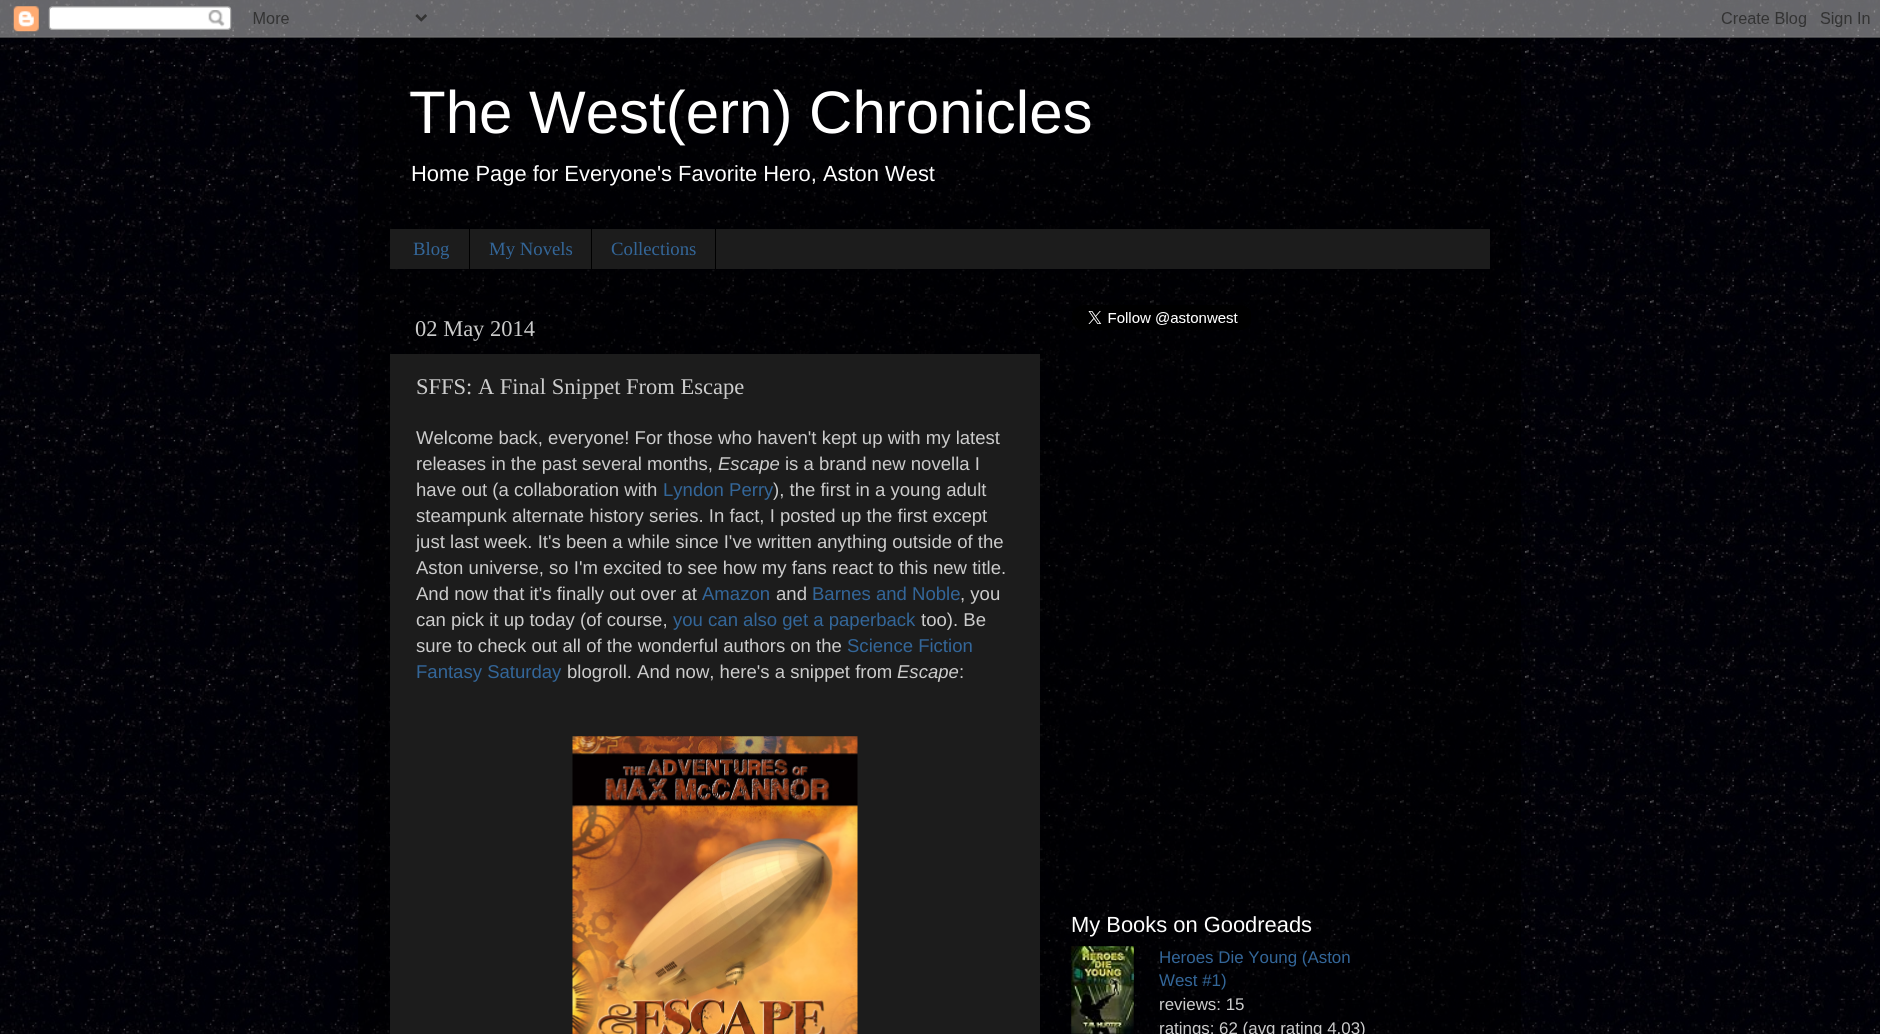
#include <cairo.h>
#include <math.h>
#include <stddef.h>

static cairo_t *ctx;

static void use_color(int r, int g, int b) {
    cairo_set_source_rgb(ctx, r / 255.0, g / 255.0, b / 255.0);
}

static void picture(const char *path, double x, double y, double w, double h) {
    cairo_surface_t *image = cairo_image_surface_create_from_png(path);
    cairo_save(ctx);
    cairo_set_source_surface(ctx, image, x, y);
    cairo_rectangle(ctx, x, y, w, h);
    cairo_fill(ctx);
    cairo_restore(ctx);
    cairo_surface_destroy(image);
}

int main(void) {
    cairo_surface_t *surface = cairo_image_surface_create(CAIRO_FORMAT_RGB24, 1880, 1034);
    ctx = cairo_create(surface);
    cairo_font_options_t *options = cairo_font_options_create();
    cairo_font_options_set_hint_metrics(options, CAIRO_HINT_METRICS_OFF);
    cairo_font_options_set_hint_style(options, CAIRO_HINT_STYLE_NONE);
    cairo_set_font_options(ctx, options);
    cairo_set_miter_limit(ctx, 4);
    use_color(255, 255, 255);
    cairo_paint(ctx);
    picture("img1.png", 0, 0, 1880, 1034);
    cairo_set_source_rgba(ctx, 0, 0, 0, 0.5);
    cairo_rectangle(ctx, 358, 37, 1163, 997);
    cairo_fill(ctx);
    picture("img2.png", 0, 0, 1880, 38);
    cairo_select_font_face(ctx, "Liberation Sans", CAIRO_FONT_SLANT_NORMAL, CAIRO_FONT_WEIGHT_NORMAL);
    cairo_set_font_size(ctx, 60);
    use_color(255, 255, 255);
    cairo_move_to(ctx, 409, 133);
    cairo_show_text(ctx, "The West(ern) Chronicles");
    cairo_set_font_size(ctx, 21.9);
    cairo_move_to(ctx, 411, 181);
    cairo_show_text(ctx, "Home Page for Everyone's Favorite Hero, Aston West");
    use_color(28, 28, 28);
    cairo_rectangle(ctx, 390, 229, 1100, 40);
    cairo_fill(ctx);
    use_color(0, 0, 0);
    cairo_rectangle(ctx, 469, 229, 1, 40);
    cairo_fill(ctx);
    cairo_select_font_face(ctx, "Liberation Serif", CAIRO_FONT_SLANT_NORMAL, CAIRO_FONT_WEIGHT_NORMAL);
    cairo_set_font_size(ctx, 18.75);
    use_color(51, 102, 153);
    cairo_move_to(ctx, 413, 255);
    cairo_show_text(ctx, "Blog");
    use_color(0, 0, 0);
    cairo_rectangle(ctx, 591, 229, 1, 40);
    cairo_fill(ctx);
    use_color(51, 102, 153);
    cairo_move_to(ctx, 489, 255);
    cairo_show_text(ctx, "My Novels");
    use_color(0, 0, 0);
    cairo_rectangle(ctx, 715, 229, 1, 40);
    cairo_fill(ctx);
    use_color(51, 102, 153);
    cairo_move_to(ctx, 611, 255);
    cairo_show_text(ctx, "Collections");
    cairo_set_font_size(ctx, 22.5);
    use_color(204, 204, 204);
    cairo_move_to(ctx, 415, 336);
    cairo_show_text(ctx, "02 May 2014");
    use_color(28, 28, 28);
    cairo_rectangle(ctx, 390, 354, 650, 680);
    cairo_fill(ctx);
    use_color(204, 204, 204);
    cairo_move_to(ctx, 416, 394);
    cairo_show_text(ctx, "SFFS: A Final Snippet From Escape");
    cairo_select_font_face(ctx, "Liberation Sans", CAIRO_FONT_SLANT_NORMAL, CAIRO_FONT_WEIGHT_NORMAL);
    cairo_set_font_size(ctx, 18.55);
    cairo_move_to(ctx, 416, 444);
    cairo_show_text(ctx, "Welcome back, everyone! For those who haven't kept up with my latest");
    cairo_move_to(ctx, 416, 470);
    cairo_show_text(ctx, "releases in the past several months,");
    cairo_select_font_face(ctx, "Liberation Sans", CAIRO_FONT_SLANT_ITALIC, CAIRO_FONT_WEIGHT_NORMAL);
    cairo_move_to(ctx, 718, 470);
    cairo_show_text(ctx, "Escape");
    cairo_select_font_face(ctx, "Liberation Sans", CAIRO_FONT_SLANT_NORMAL, CAIRO_FONT_WEIGHT_NORMAL);
    cairo_move_to(ctx, 785, 470);
    cairo_show_text(ctx, "is a brand new novella I");
    cairo_move_to(ctx, 416, 496);
    cairo_show_text(ctx, "have out (a collaboration with");
    use_color(51, 102, 153);
    cairo_move_to(ctx, 663, 496);
    cairo_show_text(ctx, "Lyndon Perry");
    use_color(204, 204, 204);
    cairo_move_to(ctx, 773, 496);
    cairo_show_text(ctx, "), the first in a young adult");
    cairo_move_to(ctx, 416, 522);
    cairo_show_text(ctx, "steampunk alternate history series. In fact, I posted up the first except");
    cairo_move_to(ctx, 416, 548);
    cairo_show_text(ctx, "just last week. It's been a while since I've written anything outside of the");
    cairo_move_to(ctx, 416, 574);
    cairo_show_text(ctx, "Aston universe, so I'm excited to see how my fans react to this new title.");
    cairo_move_to(ctx, 416, 600);
    cairo_show_text(ctx, "And now that it's finally out over at");
    use_color(51, 102, 153);
    cairo_move_to(ctx, 702, 600);
    cairo_show_text(ctx, "Amazon");
    use_color(204, 204, 204);
    cairo_move_to(ctx, 776, 600);
    cairo_show_text(ctx, "and");
    use_color(51, 102, 153);
    cairo_move_to(ctx, 812, 600);
    cairo_show_text(ctx, "Barnes and Noble");
    use_color(204, 204, 204);
    cairo_move_to(ctx, 960, 600);
    cairo_show_text(ctx, ", you");
    cairo_move_to(ctx, 416, 626);
    cairo_show_text(ctx, "can pick it up today (of course,");
    use_color(51, 102, 153);
    cairo_move_to(ctx, 673, 626);
    cairo_show_text(ctx, "you can also get a paperback");
    use_color(204, 204, 204);
    cairo_move_to(ctx, 921, 626);
    cairo_show_text(ctx, "too). Be");
    cairo_move_to(ctx, 416, 652);
    cairo_show_text(ctx, "sure to check out all of the wonderful authors on the");
    use_color(51, 102, 153);
    cairo_move_to(ctx, 847, 652);
    cairo_show_text(ctx, "Science Fiction");
    cairo_move_to(ctx, 416, 678);
    cairo_show_text(ctx, "Fantasy Saturday");
    use_color(204, 204, 204);
    cairo_move_to(ctx, 567, 678);
    cairo_show_text(ctx, "blogroll. And now, here's a snippet from");
    cairo_select_font_face(ctx, "Liberation Sans", CAIRO_FONT_SLANT_ITALIC, CAIRO_FONT_WEIGHT_NORMAL);
    cairo_move_to(ctx, 897, 678);
    cairo_show_text(ctx, "Escape");
    cairo_select_font_face(ctx, "Liberation Sans", CAIRO_FONT_SLANT_NORMAL, CAIRO_FONT_WEIGHT_NORMAL);
    cairo_move_to(ctx, 959, 678);
    cairo_show_text(ctx, ":");
    picture("img3.png", 572, 736, 286, 298);
    picture("img4.png", 1072, 305, 179, 25);
    cairo_set_font_size(ctx, 21.9);
    use_color(255, 255, 255);
    cairo_move_to(ctx, 1071, 932);
    cairo_show_text(ctx, "My Books on Goodreads");
    picture("img5.png", 1071, 946, 63, 88);
    cairo_set_font_size(ctx, 16.9);
    use_color(51, 102, 153);
    cairo_move_to(ctx, 1159, 963);
    cairo_show_text(ctx, "Heroes Die Young (Aston");
    cairo_move_to(ctx, 1159, 986);
    cairo_show_text(ctx, "West #1)");
    use_color(204, 204, 204);
    cairo_move_to(ctx, 1159, 1010);
    cairo_show_text(ctx, "reviews: 15");
    cairo_move_to(ctx, 1159, 1034);
    cairo_show_text(ctx, "ratings: 62 (avg rating 4.03)");
    cairo_surface_write_to_png(surface, "result.png");
    cairo_font_options_destroy(options);
    cairo_destroy(ctx);
    cairo_surface_destroy(surface);
    return 0;
}
